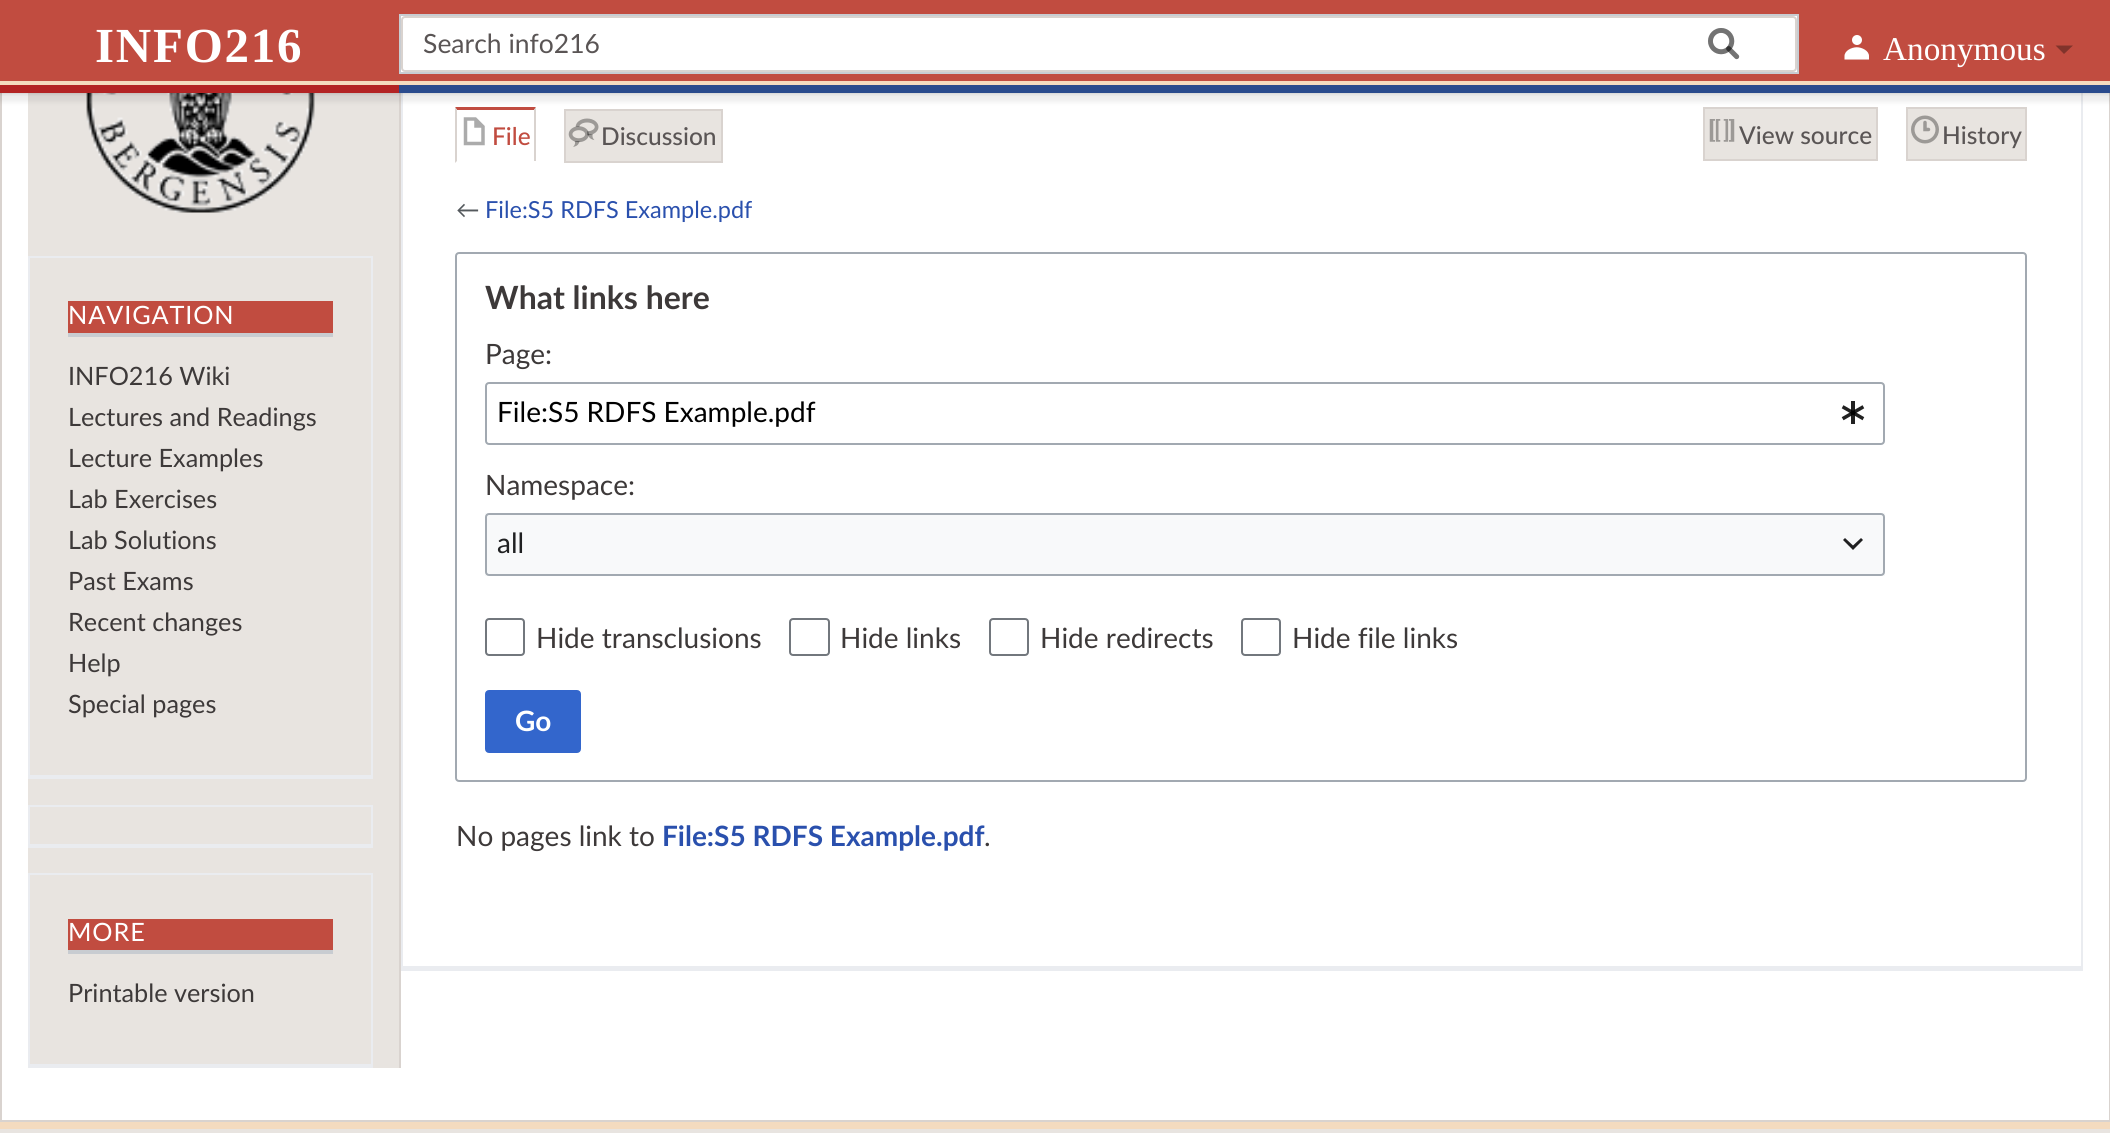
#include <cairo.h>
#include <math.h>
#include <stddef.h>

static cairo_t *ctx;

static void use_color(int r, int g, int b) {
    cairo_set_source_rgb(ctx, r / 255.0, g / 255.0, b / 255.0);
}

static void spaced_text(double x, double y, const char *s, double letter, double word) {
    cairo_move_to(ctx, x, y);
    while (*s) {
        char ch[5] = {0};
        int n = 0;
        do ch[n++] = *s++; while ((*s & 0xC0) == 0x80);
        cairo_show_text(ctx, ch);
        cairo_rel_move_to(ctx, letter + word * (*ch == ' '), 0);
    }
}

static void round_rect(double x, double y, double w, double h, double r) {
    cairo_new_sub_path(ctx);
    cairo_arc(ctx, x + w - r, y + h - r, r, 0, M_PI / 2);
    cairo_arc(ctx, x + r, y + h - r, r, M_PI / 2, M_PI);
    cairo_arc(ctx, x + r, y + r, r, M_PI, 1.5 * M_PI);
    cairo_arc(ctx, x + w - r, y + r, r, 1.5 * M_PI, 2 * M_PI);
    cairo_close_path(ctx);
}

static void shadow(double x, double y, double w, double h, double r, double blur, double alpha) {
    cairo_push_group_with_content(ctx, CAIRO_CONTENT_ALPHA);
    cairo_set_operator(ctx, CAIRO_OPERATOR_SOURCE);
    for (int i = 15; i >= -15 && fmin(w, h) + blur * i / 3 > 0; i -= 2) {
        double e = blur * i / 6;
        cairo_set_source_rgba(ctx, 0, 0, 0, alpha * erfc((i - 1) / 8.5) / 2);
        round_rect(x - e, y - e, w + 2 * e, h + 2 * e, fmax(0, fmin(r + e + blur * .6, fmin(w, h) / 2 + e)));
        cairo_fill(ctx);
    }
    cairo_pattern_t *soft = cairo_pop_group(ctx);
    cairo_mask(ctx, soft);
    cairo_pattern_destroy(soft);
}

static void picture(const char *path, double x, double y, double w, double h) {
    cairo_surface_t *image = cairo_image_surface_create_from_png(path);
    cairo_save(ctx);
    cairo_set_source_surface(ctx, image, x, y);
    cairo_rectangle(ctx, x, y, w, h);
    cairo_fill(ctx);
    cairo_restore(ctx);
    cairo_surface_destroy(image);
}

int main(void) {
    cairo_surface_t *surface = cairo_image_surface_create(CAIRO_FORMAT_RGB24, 2110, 1133);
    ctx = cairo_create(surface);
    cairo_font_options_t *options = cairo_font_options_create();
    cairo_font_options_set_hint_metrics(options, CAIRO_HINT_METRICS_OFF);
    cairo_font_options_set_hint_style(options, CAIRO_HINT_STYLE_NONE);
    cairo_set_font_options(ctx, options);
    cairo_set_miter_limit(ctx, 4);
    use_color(255, 255, 255);
    cairo_paint(ctx);
    cairo_rectangle(ctx, 1, -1, 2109, 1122);
    use_color(217, 211, 207);
    cairo_stroke(ctx);
    use_color(232, 228, 224);
    cairo_rectangle(ctx, 28, 93, 371, 780);
    cairo_fill(ctx);
    use_color(217, 211, 207);
    cairo_rectangle(ctx, 399, 93, 2, 975);
    cairo_fill(ctx);
    picture("img4.png", 86, 93, 229, 120);
    use_color(234, 236, 240);
    cairo_rectangle(ctx, 2081, 93, 2, 878);
    cairo_fill(ctx);
    cairo_rectangle(ctx, 401, 966, 1682, 5);
    cairo_fill(ctx);
    cairo_rectangle(ctx, 401, 93, 2, 878);
    cairo_fill(ctx);
    use_color(0, 0, 0);
    shadow(0, 84, 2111, 9, 0, 2, 0.2);
    use_color(193, 76, 64);
    cairo_new_path(ctx);
    cairo_move_to(ctx, 455, 107);
    cairo_line_to(ctx, 536, 107);
    cairo_line_to(ctx, 534, 110);
    cairo_line_to(ctx, 457, 110);
    cairo_close_path(ctx);
    cairo_fill(ctx);
    use_color(217, 211, 207);
    cairo_new_path(ctx);
    cairo_move_to(ctx, 536, 107);
    cairo_line_to(ctx, 536, 163);
    cairo_line_to(ctx, 534, 161);
    cairo_line_to(ctx, 534, 110);
    cairo_close_path(ctx);
    cairo_fill(ctx);
    cairo_new_path(ctx);
    cairo_move_to(ctx, 455, 163);
    cairo_line_to(ctx, 455, 107);
    cairo_line_to(ctx, 457, 110);
    cairo_line_to(ctx, 457, 161);
    cairo_close_path(ctx);
    cairo_fill(ctx);
    use_color(232, 228, 224);
    cairo_rectangle(ctx, 565, 110, 157, 52);
    cairo_fill_preserve(ctx);
    use_color(217, 211, 207);
    cairo_stroke(ctx);
    use_color(232, 228, 224);
    cairo_rectangle(ctx, 1704, 108, 173, 52);
    cairo_fill_preserve(ctx);
    use_color(217, 211, 207);
    cairo_stroke(ctx);
    use_color(232, 228, 224);
    cairo_rectangle(ctx, 1907, 108, 119, 52);
    cairo_fill_preserve(ctx);
    use_color(217, 211, 207);
    cairo_stroke(ctx);
    use_color(0, 0, 0);
    shadow(-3, 86, 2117, 16, 0, 2.5, 0.07);
    use_color(193, 76, 64);
    cairo_rectangle(ctx, 0, 0, 2110, 81);
    cairo_fill(ctx);
    use_color(244, 219, 191);
    cairo_rectangle(ctx, 0, 81, 2110, 4);
    cairo_fill(ctx);
    cairo_select_font_face(ctx, "Liberation Serif", CAIRO_FONT_SLANT_NORMAL, CAIRO_FONT_WEIGHT_BOLD);
    cairo_set_font_size(ctx, 49);
    use_color(255, 255, 255);
    spaced_text(95, 62, "INFO216", 1.75, 0);
    cairo_rectangle(ctx, 400, 15, 1398, 58);
    cairo_fill_preserve(ctx);
    use_color(200, 204, 209);
    cairo_stroke(ctx);
    round_rect(402, 17, 1394, 54, 3);
    use_color(217, 211, 207);
    cairo_stroke(ctx);
    picture("img1.png", 1708, 28, 32, 32);
    cairo_select_font_face(ctx, "Lato", CAIRO_FONT_SLANT_NORMAL, CAIRO_FONT_WEIGHT_NORMAL);
    cairo_set_font_size(ctx, 26.5);
    use_color(90, 85, 85);
    cairo_move_to(ctx, 423, 53);
    cairo_show_text(ctx, "Search info216");
    picture("img2.png", 1708, 28, 32, 32);
    picture("img3.png", 1844, 35, 25, 25);
    cairo_select_font_face(ctx, "Liberation Serif", CAIRO_FONT_SLANT_NORMAL, CAIRO_FONT_WEIGHT_NORMAL);
    cairo_set_font_size(ctx, 33.25);
    use_color(255, 255, 255);
    cairo_move_to(ctx, 1883, 60);
    cairo_show_text(ctx, "Anonymous");
    use_color(129, 51, 43);
    cairo_new_path(ctx);
    cairo_move_to(ctx, 2073, 45.5);
    cairo_line_to(ctx, 2064, 54);
    cairo_line_to(ctx, 2055.5, 45.5);
    cairo_close_path(ctx);
    cairo_fill(ctx);
    use_color(179, 36, 36);
    cairo_rectangle(ctx, 0, 85, 399, 8);
    cairo_fill(ctx);
    use_color(42, 75, 141);
    cairo_rectangle(ctx, 399, 85, 1711, 8);
    cairo_fill(ctx);
    use_color(234, 236, 240);
    cairo_rectangle(ctx, 28, 256, 345, 2);
    cairo_fill(ctx);
    cairo_rectangle(ctx, 371, 256, 2, 523);
    cairo_fill(ctx);
    cairo_rectangle(ctx, 28, 775, 345, 4);
    cairo_fill(ctx);
    cairo_rectangle(ctx, 28, 256, 2, 523);
    cairo_fill(ctx);
    use_color(193, 76, 64);
    cairo_rectangle(ctx, 68, 301, 265, 32);
    cairo_fill(ctx);
    use_color(200, 204, 209);
    cairo_rectangle(ctx, 68, 333, 265, 4);
    cairo_fill(ctx);
    cairo_select_font_face(ctx, "Lato", CAIRO_FONT_SLANT_NORMAL, CAIRO_FONT_WEIGHT_NORMAL);
    cairo_set_font_size(ctx, 25.25);
    use_color(255, 255, 255);
    spaced_text(68, 324, "NAVIGATION", 0.9, 0);
    use_color(61, 57, 57);
    cairo_move_to(ctx, 68, 385);
    cairo_show_text(ctx, "INFO216 Wiki");
    cairo_move_to(ctx, 68, 426);
    cairo_show_text(ctx, "Lectures and Readings");
    cairo_move_to(ctx, 68, 467);
    cairo_show_text(ctx, "Lecture Examples");
    cairo_move_to(ctx, 68, 508);
    cairo_show_text(ctx, "Lab Exercises");
    cairo_move_to(ctx, 68, 549);
    cairo_show_text(ctx, "Lab Solutions");
    cairo_move_to(ctx, 68, 590);
    cairo_show_text(ctx, "Past Exams");
    cairo_move_to(ctx, 68, 631);
    cairo_show_text(ctx, "Recent changes");
    cairo_move_to(ctx, 68, 672);
    cairo_show_text(ctx, "Help");
    cairo_move_to(ctx, 68, 713);
    cairo_show_text(ctx, "Special pages");
    use_color(234, 236, 240);
    cairo_rectangle(ctx, 28, 805, 345, 2);
    cairo_fill(ctx);
    cairo_rectangle(ctx, 371, 805, 2, 42);
    cairo_fill(ctx);
    cairo_rectangle(ctx, 28, 844, 345, 4);
    cairo_fill(ctx);
    cairo_rectangle(ctx, 28, 805, 2, 42);
    cairo_fill(ctx);
    use_color(255, 255, 255);
    cairo_rectangle(ctx, 534, 161, 2, 2);
    cairo_fill(ctx);
    picture("img5.png", 463, 117, 22, 29);
    cairo_select_font_face(ctx, "Lato Medium", CAIRO_FONT_SLANT_NORMAL, CAIRO_FONT_WEIGHT_NORMAL);
    cairo_set_font_size(ctx, 24.5);
    use_color(193, 76, 64);
    cairo_move_to(ctx, 492, 145);
    cairo_show_text(ctx, "File");
    picture("img6.png", 568, 118, 31, 29);
    use_color(90, 85, 85);
    cairo_move_to(ctx, 601, 145);
    cairo_show_text(ctx, "Discussion");
    picture("img7.png", 1709, 119, 26, 23);
    cairo_move_to(ctx, 1739, 144);
    cairo_show_text(ctx, "View source");
    picture("img8.png", 1911, 115, 28, 29);
    cairo_move_to(ctx, 1942, 144);
    cairo_show_text(ctx, "History");
    cairo_select_font_face(ctx, "Lato", CAIRO_FONT_SLANT_NORMAL, CAIRO_FONT_WEIGHT_NORMAL);
    cairo_set_font_size(ctx, 23.5);
    use_color(84, 89, 93);
    cairo_move_to(ctx, 456, 218);
    cairo_show_text(ctx, "←");
    use_color(42, 80, 173);
    cairo_move_to(ctx, 485, 218);
    cairo_show_text(ctx, "File:S5 RDFS Example.pdf");
    round_rect(456, 253, 1570, 528, 3);
    use_color(162, 169, 177);
    cairo_stroke(ctx);
    cairo_select_font_face(ctx, "Lato", CAIRO_FONT_SLANT_NORMAL, CAIRO_FONT_WEIGHT_BOLD);
    cairo_set_font_size(ctx, 32);
    use_color(61, 57, 57);
    cairo_move_to(ctx, 485, 309);
    cairo_show_text(ctx, "What links here");
    cairo_select_font_face(ctx, "Lato", CAIRO_FONT_SLANT_NORMAL, CAIRO_FONT_WEIGHT_NORMAL);
    cairo_set_font_size(ctx, 28);
    cairo_move_to(ctx, 485, 364);
    cairo_show_text(ctx, "Page:");
    round_rect(486, 383, 1398, 61, 3);
    use_color(162, 169, 177);
    cairo_stroke(ctx);
    use_color(0, 0, 0);
    cairo_move_to(ctx, 497, 422);
    cairo_show_text(ctx, "File:S5 RDFS Example.pdf");
    picture("img9.png", 1841, 401, 24, 23);
    use_color(61, 57, 57);
    cairo_move_to(ctx, 485, 495);
    cairo_show_text(ctx, "Namespace:");
    use_color(248, 249, 250);
    cairo_rectangle(ctx, 485, 513, 1400, 63);
    cairo_fill(ctx);
    round_rect(486, 514, 1398, 61, 3);
    use_color(162, 169, 177);
    cairo_stroke(ctx);
    use_color(32, 33, 34);
    cairo_move_to(ctx, 497, 553);
    cairo_show_text(ctx, "all");
    use_color(32, 32, 33);
    cairo_new_path(ctx);
    cairo_move_to(ctx, 1861, 538);
    cairo_line_to(ctx, 1853, 545.5);
    cairo_line_to(ctx, 1845, 538);
    cairo_line_to(ctx, 1843, 540);
    cairo_line_to(ctx, 1853, 550);
    cairo_line_to(ctx, 1863, 540);
    cairo_close_path(ctx);
    cairo_fill(ctx);
    round_rect(486, 619, 38, 36, 3);
    use_color(114, 119, 125);
    cairo_stroke(ctx);
    use_color(61, 57, 57);
    cairo_move_to(ctx, 536, 648);
    cairo_show_text(ctx, "Hide transclusions");
    round_rect(790, 619, 39, 36, 3);
    use_color(114, 119, 125);
    cairo_stroke(ctx);
    use_color(61, 57, 57);
    cairo_move_to(ctx, 840, 648);
    cairo_show_text(ctx, "Hide links");
    round_rect(990, 619, 38, 36, 3);
    use_color(114, 119, 125);
    cairo_stroke(ctx);
    use_color(61, 57, 57);
    cairo_move_to(ctx, 1040, 648);
    cairo_show_text(ctx, "Hide redirects");
    round_rect(1242, 619, 38, 36, 3);
    use_color(114, 119, 125);
    cairo_stroke(ctx);
    use_color(61, 57, 57);
    cairo_move_to(ctx, 1292, 648);
    cairo_show_text(ctx, "Hide file links");
    use_color(51, 102, 204);
    round_rect(486, 691, 94, 61, 3);
    cairo_fill_preserve(ctx);
    cairo_stroke(ctx);
    cairo_select_font_face(ctx, "Lato", CAIRO_FONT_SLANT_NORMAL, CAIRO_FONT_WEIGHT_BOLD);
    use_color(255, 255, 255);
    cairo_move_to(ctx, 515, 731);
    cairo_show_text(ctx, "Go");
    cairo_select_font_face(ctx, "Lato", CAIRO_FONT_SLANT_NORMAL, CAIRO_FONT_WEIGHT_NORMAL);
    use_color(61, 57, 57);
    cairo_move_to(ctx, 456, 846);
    cairo_show_text(ctx, "No pages link to");
    cairo_select_font_face(ctx, "Lato", CAIRO_FONT_SLANT_NORMAL, CAIRO_FONT_WEIGHT_BOLD);
    use_color(42, 80, 173);
    cairo_move_to(ctx, 662, 846);
    cairo_show_text(ctx, "File:S5 RDFS Example.pdf");
    cairo_select_font_face(ctx, "Lato", CAIRO_FONT_SLANT_NORMAL, CAIRO_FONT_WEIGHT_NORMAL);
    use_color(61, 57, 57);
    cairo_move_to(ctx, 984, 846);
    cairo_show_text(ctx, ".");
    use_color(232, 228, 224);
    cairo_rectangle(ctx, 30, 873, 369, 195);
    cairo_fill(ctx);
    use_color(234, 236, 240);
    cairo_rectangle(ctx, 28, 873, 345, 2);
    cairo_fill(ctx);
    cairo_rectangle(ctx, 371, 873, 2, 195);
    cairo_fill(ctx);
    cairo_rectangle(ctx, 28, 1064, 345, 4);
    cairo_fill(ctx);
    cairo_rectangle(ctx, 28, 873, 2, 195);
    cairo_fill(ctx);
    use_color(193, 76, 64);
    cairo_rectangle(ctx, 68, 919, 265, 31);
    cairo_fill(ctx);
    use_color(200, 204, 209);
    cairo_rectangle(ctx, 68, 950, 265, 4);
    cairo_fill(ctx);
    cairo_set_font_size(ctx, 25.25);
    use_color(255, 255, 255);
    spaced_text(68, 941, "MORE", 0.9, 0);
    use_color(61, 57, 57);
    cairo_move_to(ctx, 68, 1002);
    cairo_show_text(ctx, "Printable version");
    use_color(244, 219, 191);
    cairo_rectangle(ctx, 0, 1122, 2110, 7);
    cairo_fill(ctx);
    use_color(232, 228, 224);
    cairo_rectangle(ctx, 0, 1129, 2110, 4);
    cairo_fill(ctx);
    cairo_surface_write_to_png(surface, "result.png");
    cairo_font_options_destroy(options);
    cairo_destroy(ctx);
    cairo_surface_destroy(surface);
    return 0;
}
